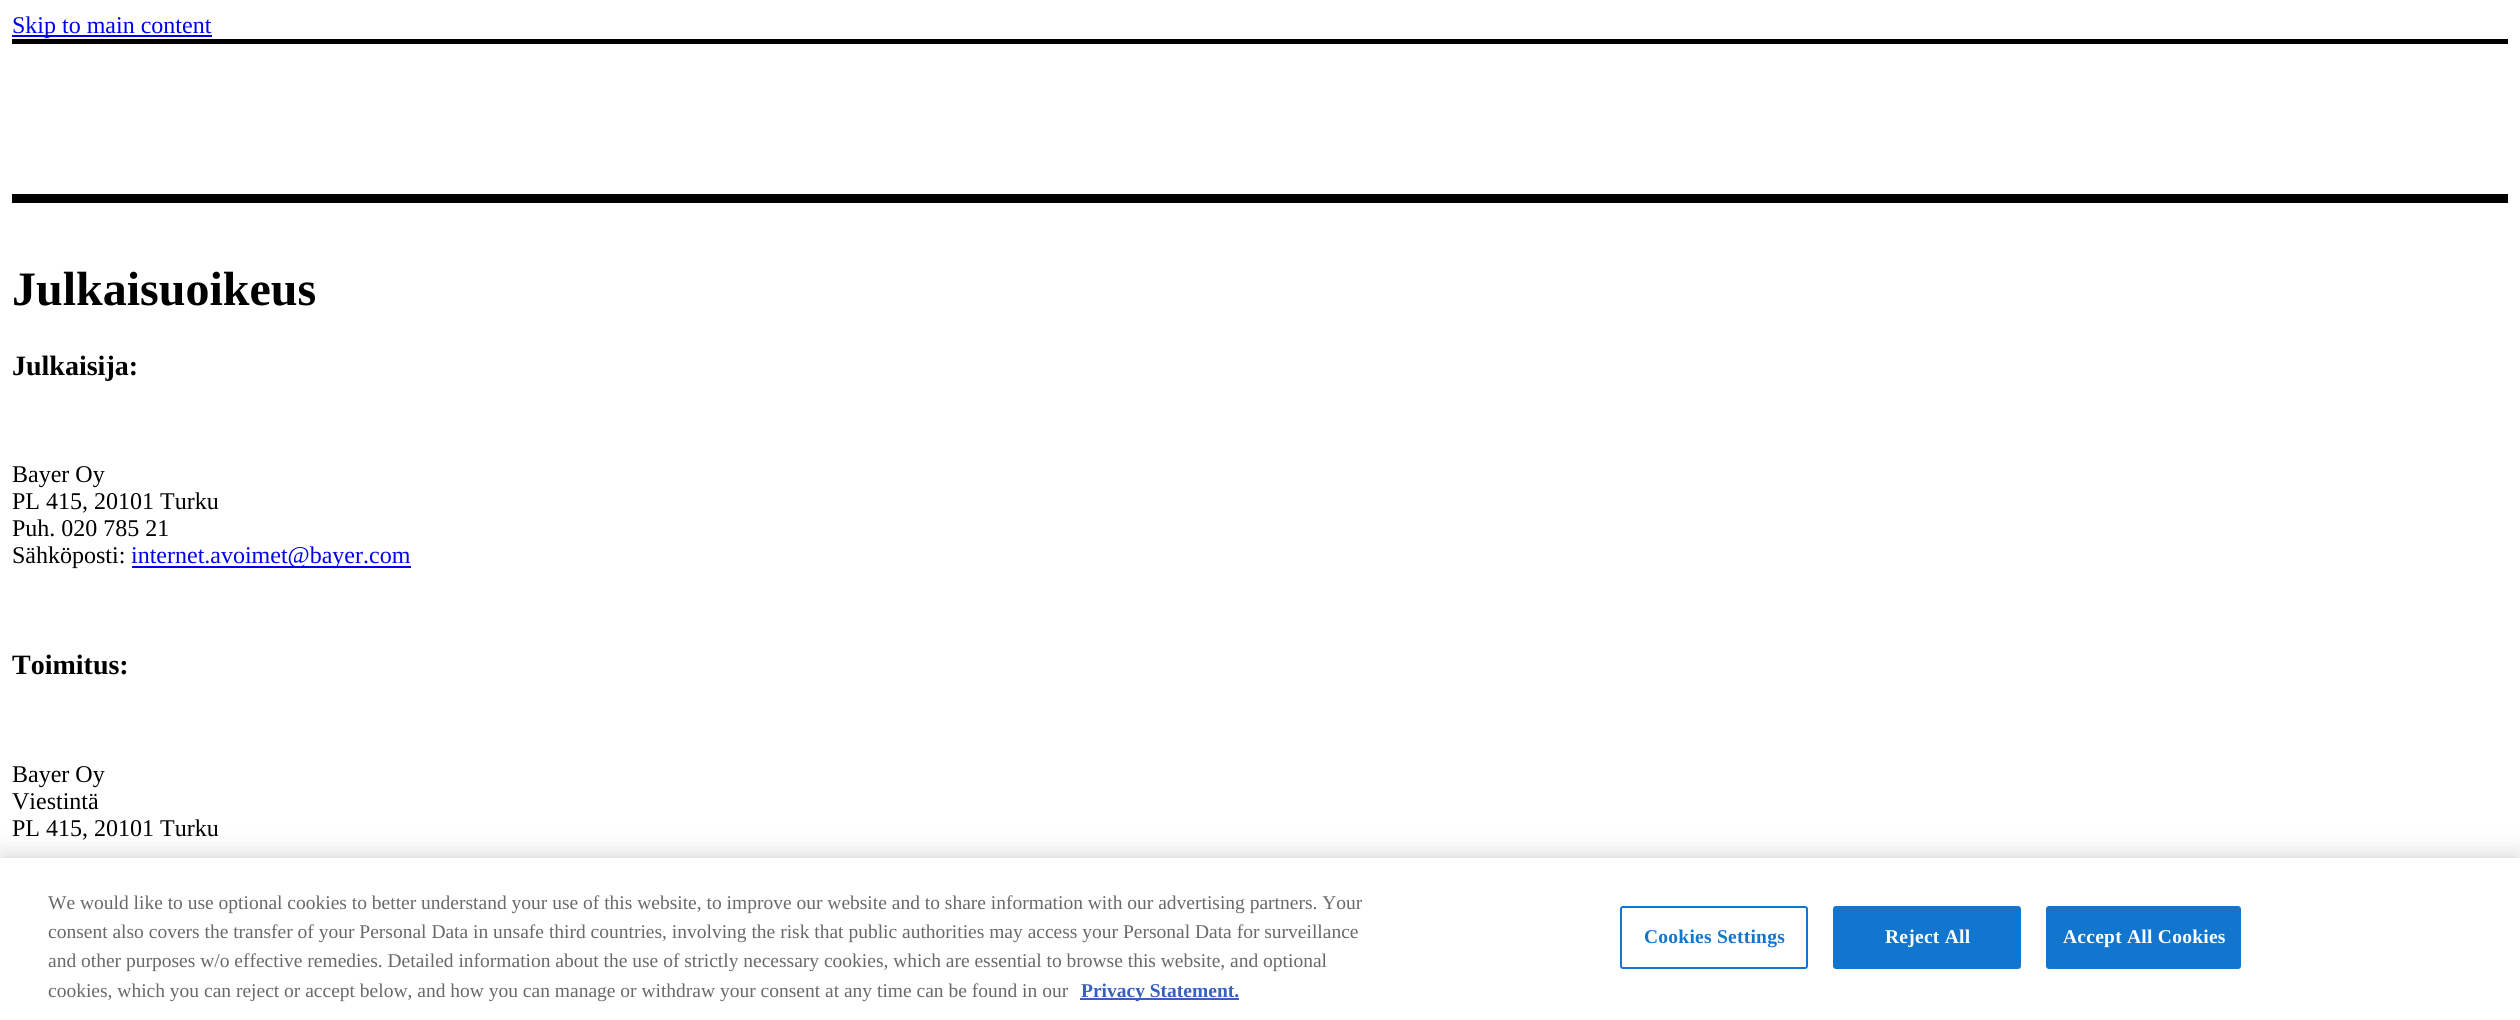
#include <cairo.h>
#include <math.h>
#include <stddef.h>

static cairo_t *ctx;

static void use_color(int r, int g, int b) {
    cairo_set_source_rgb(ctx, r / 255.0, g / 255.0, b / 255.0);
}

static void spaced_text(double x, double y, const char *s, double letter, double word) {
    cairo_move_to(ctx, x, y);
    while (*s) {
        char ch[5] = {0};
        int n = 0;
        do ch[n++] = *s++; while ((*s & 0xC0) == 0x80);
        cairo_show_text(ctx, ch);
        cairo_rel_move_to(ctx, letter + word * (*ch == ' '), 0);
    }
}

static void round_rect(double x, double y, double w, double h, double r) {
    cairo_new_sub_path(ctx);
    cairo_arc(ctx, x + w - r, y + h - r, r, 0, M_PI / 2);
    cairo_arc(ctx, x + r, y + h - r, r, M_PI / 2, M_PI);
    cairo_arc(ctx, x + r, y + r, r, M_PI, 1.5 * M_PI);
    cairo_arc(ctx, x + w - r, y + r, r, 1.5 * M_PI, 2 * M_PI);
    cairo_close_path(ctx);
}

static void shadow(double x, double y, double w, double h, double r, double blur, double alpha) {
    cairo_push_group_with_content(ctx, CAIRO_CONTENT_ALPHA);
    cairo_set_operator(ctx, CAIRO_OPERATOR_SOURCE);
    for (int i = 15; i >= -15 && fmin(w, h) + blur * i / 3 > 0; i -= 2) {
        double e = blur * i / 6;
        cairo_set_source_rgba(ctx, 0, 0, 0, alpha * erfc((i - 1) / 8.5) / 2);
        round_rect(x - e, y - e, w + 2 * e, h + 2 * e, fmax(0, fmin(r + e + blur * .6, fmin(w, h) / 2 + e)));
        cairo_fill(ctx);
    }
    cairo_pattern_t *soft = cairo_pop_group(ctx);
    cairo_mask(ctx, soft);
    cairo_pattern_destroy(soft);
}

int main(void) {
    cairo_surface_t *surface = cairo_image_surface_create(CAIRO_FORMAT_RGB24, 2520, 1020);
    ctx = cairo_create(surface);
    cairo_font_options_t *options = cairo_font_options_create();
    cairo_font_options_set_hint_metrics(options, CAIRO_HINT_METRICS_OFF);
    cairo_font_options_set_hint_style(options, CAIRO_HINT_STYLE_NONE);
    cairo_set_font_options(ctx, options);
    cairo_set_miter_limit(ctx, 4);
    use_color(255, 255, 255);
    cairo_paint(ctx);
    use_color(0, 0, 238);
    cairo_rectangle(ctx, 12, 35, 200, 2);
    cairo_fill(ctx);
    cairo_select_font_face(ctx, "Liberation Serif", CAIRO_FONT_SLANT_NORMAL, CAIRO_FONT_WEIGHT_NORMAL);
    cairo_set_font_size(ctx, 24);
    cairo_move_to(ctx, 12, 33);
    cairo_show_text(ctx, "Skip to main content");
    use_color(0, 0, 0);
    cairo_rectangle(ctx, 12, 194, 2496, 9);
    cairo_fill(ctx);
    cairo_rectangle(ctx, 12, 39, 2496, 5);
    cairo_fill(ctx);
    cairo_select_font_face(ctx, "Liberation Serif", CAIRO_FONT_SLANT_NORMAL, CAIRO_FONT_WEIGHT_BOLD);
    cairo_set_font_size(ctx, 48);
    cairo_move_to(ctx, 12, 305);
    cairo_show_text(ctx, "Julkaisuoikeus");
    cairo_set_font_size(ctx, 28);
    cairo_move_to(ctx, 12, 375);
    cairo_show_text(ctx, "Julkaisija:");
    cairo_select_font_face(ctx, "Liberation Serif", CAIRO_FONT_SLANT_NORMAL, CAIRO_FONT_WEIGHT_NORMAL);
    cairo_set_font_size(ctx, 24);
    cairo_move_to(ctx, 12, 482);
    cairo_show_text(ctx, "Bayer Oy");
    cairo_move_to(ctx, 12, 509);
    cairo_show_text(ctx, "PL 415, 20101 Turku");
    cairo_move_to(ctx, 12, 536);
    cairo_show_text(ctx, "Puh. 020 785 21");
    cairo_move_to(ctx, 12, 563);
    cairo_show_text(ctx, "Sähköposti:");
    use_color(0, 0, 238);
    cairo_rectangle(ctx, 132, 566, 279, 2);
    cairo_fill(ctx);
    cairo_move_to(ctx, 131, 563);
    cairo_show_text(ctx, "internet.avoimet@bayer.com");
    cairo_select_font_face(ctx, "Liberation Serif", CAIRO_FONT_SLANT_NORMAL, CAIRO_FONT_WEIGHT_BOLD);
    cairo_set_font_size(ctx, 28);
    use_color(0, 0, 0);
    cairo_move_to(ctx, 12, 674);
    cairo_show_text(ctx, "Toimitus:");
    cairo_select_font_face(ctx, "Liberation Serif", CAIRO_FONT_SLANT_NORMAL, CAIRO_FONT_WEIGHT_NORMAL);
    cairo_set_font_size(ctx, 24);
    cairo_move_to(ctx, 12, 782);
    cairo_show_text(ctx, "Bayer Oy");
    cairo_move_to(ctx, 12, 809);
    cairo_show_text(ctx, "Viestintä");
    cairo_move_to(ctx, 12, 836);
    cairo_show_text(ctx, "PL 415, 20101 Turku");
    use_color(0, 0, 0);
    shadow(0, 858, 2520, 162, 0, 13.5, 0.2);
    use_color(255, 255, 255);
    cairo_rectangle(ctx, 0, 858, 2520, 162);
    cairo_fill(ctx);
    cairo_set_font_size(ctx, 19.5);
    use_color(105, 105, 105);
    cairo_move_to(ctx, 48, 909);
    cairo_show_text(ctx, "We would like to use optional cookies to better understand your use of this website, to improve our website and to share information with our advertising partners. Your");
    cairo_move_to(ctx, 48, 938);
    cairo_show_text(ctx, "consent also covers the transfer of your Personal Data in unsafe third countries, involving the risk that public authorities may access your Personal Data for surveillance");
    cairo_move_to(ctx, 48, 967);
    cairo_show_text(ctx, "and other purposes w/o effective remedies. Detailed information about the use of strictly necessary cookies, which are essential to browse this website, and optional");
    cairo_move_to(ctx, 48, 997);
    cairo_show_text(ctx, "cookies, which you can reject or accept below, and how you can manage or withdraw your consent at any time can be found in our");
    use_color(56, 96, 190);
    cairo_rectangle(ctx, 1080, 998, 159, 2);
    cairo_fill(ctx);
    cairo_select_font_face(ctx, "Liberation Serif", CAIRO_FONT_SLANT_NORMAL, CAIRO_FONT_WEIGHT_BOLD);
    cairo_move_to(ctx, 1081, 997);
    cairo_show_text(ctx, "Privacy Statement.");
    round_rect(1621, 907, 186, 61, 2);
    use_color(18, 118, 206);
    cairo_stroke(ctx);
    spaced_text(1644, 943, "Cookies Settings", 0.25, 0);
    round_rect(1834, 907, 186, 61, 2);
    cairo_fill_preserve(ctx);
    cairo_stroke(ctx);
    use_color(255, 255, 255);
    spaced_text(1885, 943, "Reject All", 0.25, 0);
    use_color(18, 118, 206);
    round_rect(2047, 907, 193, 61, 2);
    cairo_fill_preserve(ctx);
    cairo_stroke(ctx);
    use_color(255, 255, 255);
    spaced_text(2063, 943, "Accept All Cookies", 0.25, 0);
    cairo_surface_write_to_png(surface, "result.png");
    cairo_font_options_destroy(options);
    cairo_destroy(ctx);
    cairo_surface_destroy(surface);
    return 0;
}
